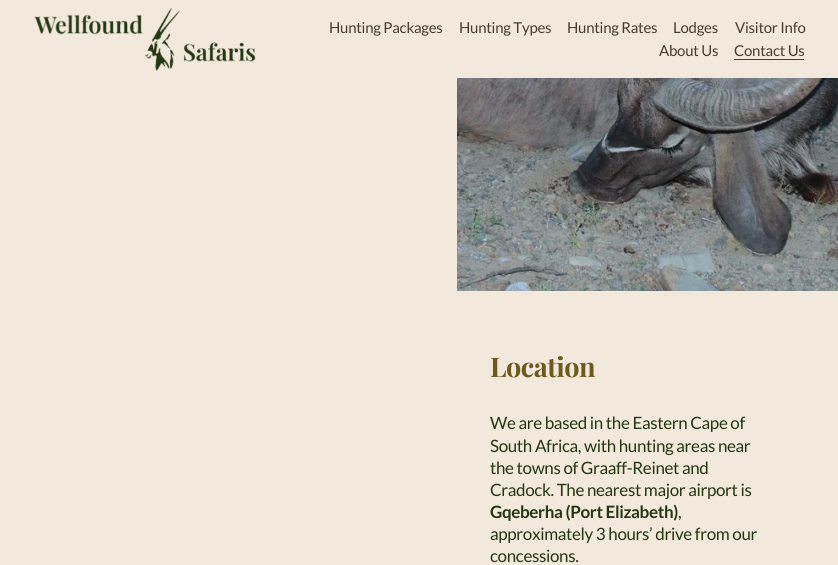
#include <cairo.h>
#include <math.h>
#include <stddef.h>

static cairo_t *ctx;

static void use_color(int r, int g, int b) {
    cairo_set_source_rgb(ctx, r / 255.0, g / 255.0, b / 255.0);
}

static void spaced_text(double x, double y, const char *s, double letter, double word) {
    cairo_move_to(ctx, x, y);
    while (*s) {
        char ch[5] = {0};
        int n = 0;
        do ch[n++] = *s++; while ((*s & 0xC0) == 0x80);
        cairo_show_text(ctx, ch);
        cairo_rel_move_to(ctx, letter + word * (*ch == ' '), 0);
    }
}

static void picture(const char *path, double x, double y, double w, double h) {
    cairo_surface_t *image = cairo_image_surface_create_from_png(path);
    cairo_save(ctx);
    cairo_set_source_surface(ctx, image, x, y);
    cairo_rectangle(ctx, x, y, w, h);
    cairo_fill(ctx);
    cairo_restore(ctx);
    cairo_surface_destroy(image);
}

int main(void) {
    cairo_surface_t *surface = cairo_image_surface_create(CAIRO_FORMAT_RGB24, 838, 565);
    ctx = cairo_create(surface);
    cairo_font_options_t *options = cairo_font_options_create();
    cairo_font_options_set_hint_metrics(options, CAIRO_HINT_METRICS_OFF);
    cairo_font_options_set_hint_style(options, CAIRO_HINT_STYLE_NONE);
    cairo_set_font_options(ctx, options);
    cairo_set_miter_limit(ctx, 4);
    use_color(242, 232, 220);
    cairo_paint(ctx);
    picture("img1.png", 34, 7, 222, 64);
    cairo_select_font_face(ctx, "Lato", CAIRO_FONT_SLANT_NORMAL, CAIRO_FONT_WEIGHT_NORMAL);
    cairo_set_font_size(ctx, 15);
    use_color(75, 58, 47);
    spaced_text(329, 33, "Hunting Packages", -0.25, 0);
    spaced_text(459, 33, "Hunting Types", -0.25, 0);
    spaced_text(567, 33, "Hunting Rates", -0.25, 0);
    spaced_text(673, 33, "Lodges", -0.25, 0);
    spaced_text(735, 33, "Visitor Info", -0.25, 0);
    spaced_text(659, 56, "About Us", -0.25, 0);
    cairo_rectangle(ctx, 734, 59, 70, 1);
    cairo_fill(ctx);
    spaced_text(734, 56, "Contact Us", -0.25, 0);
    picture("img2.png", 457, 78, 381, 213);
    cairo_select_font_face(ctx, "Playfair Display", CAIRO_FONT_SLANT_NORMAL, CAIRO_FONT_WEIGHT_BOLD);
    cairo_set_font_size(ctx, 27);
    use_color(107, 89, 29);
    spaced_text(490, 377, "Location", -0.5, 0);
    cairo_select_font_face(ctx, "Lato", CAIRO_FONT_SLANT_NORMAL, CAIRO_FONT_WEIGHT_NORMAL);
    cairo_set_font_size(ctx, 17);
    use_color(35, 55, 19);
    spaced_text(490, 429, "We are based in the Eastern Cape of", -0.35, 0);
    spaced_text(490, 452, "South Africa, with hunting areas near", -0.35, 0);
    spaced_text(490, 474, "the towns of Graaff-Reinet and", -0.35, 0);
    spaced_text(490, 496, "Cradock. The nearest major airport is", -0.35, 0);
    cairo_select_font_face(ctx, "Lato", CAIRO_FONT_SLANT_NORMAL, CAIRO_FONT_WEIGHT_BOLD);
    spaced_text(490, 518, "Gqeberha (Port Elizabeth)", -0.35, 0);
    cairo_select_font_face(ctx, "Lato", CAIRO_FONT_SLANT_NORMAL, CAIRO_FONT_WEIGHT_NORMAL);
    spaced_text(678, 518, ",", -0.35, 0);
    spaced_text(490, 540, "approximately 3 hours’ drive from our", -0.35, 0);
    spaced_text(490, 562, "concessions.", -0.35, 0);
    cairo_surface_write_to_png(surface, "result.png");
    cairo_font_options_destroy(options);
    cairo_destroy(ctx);
    cairo_surface_destroy(surface);
    return 0;
}
